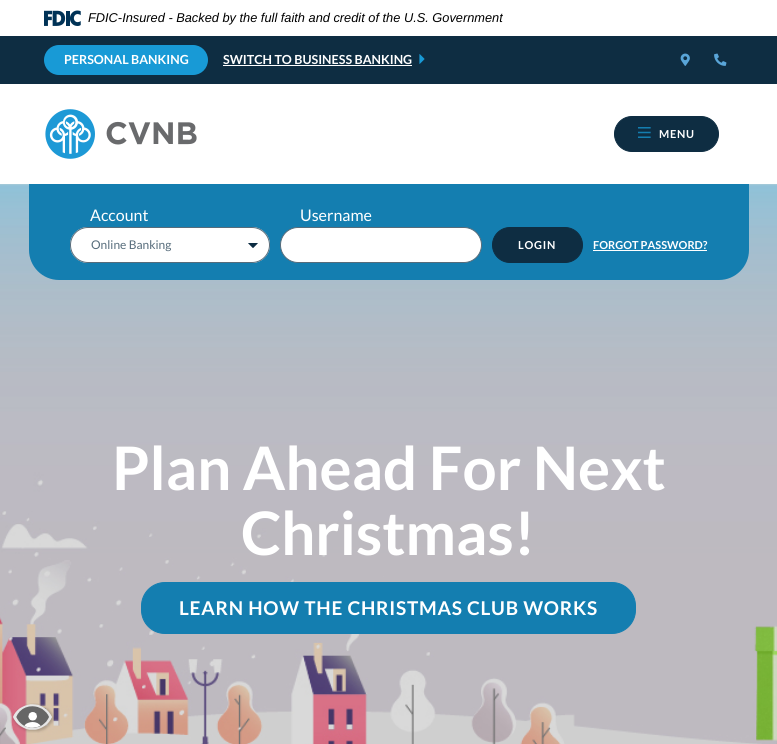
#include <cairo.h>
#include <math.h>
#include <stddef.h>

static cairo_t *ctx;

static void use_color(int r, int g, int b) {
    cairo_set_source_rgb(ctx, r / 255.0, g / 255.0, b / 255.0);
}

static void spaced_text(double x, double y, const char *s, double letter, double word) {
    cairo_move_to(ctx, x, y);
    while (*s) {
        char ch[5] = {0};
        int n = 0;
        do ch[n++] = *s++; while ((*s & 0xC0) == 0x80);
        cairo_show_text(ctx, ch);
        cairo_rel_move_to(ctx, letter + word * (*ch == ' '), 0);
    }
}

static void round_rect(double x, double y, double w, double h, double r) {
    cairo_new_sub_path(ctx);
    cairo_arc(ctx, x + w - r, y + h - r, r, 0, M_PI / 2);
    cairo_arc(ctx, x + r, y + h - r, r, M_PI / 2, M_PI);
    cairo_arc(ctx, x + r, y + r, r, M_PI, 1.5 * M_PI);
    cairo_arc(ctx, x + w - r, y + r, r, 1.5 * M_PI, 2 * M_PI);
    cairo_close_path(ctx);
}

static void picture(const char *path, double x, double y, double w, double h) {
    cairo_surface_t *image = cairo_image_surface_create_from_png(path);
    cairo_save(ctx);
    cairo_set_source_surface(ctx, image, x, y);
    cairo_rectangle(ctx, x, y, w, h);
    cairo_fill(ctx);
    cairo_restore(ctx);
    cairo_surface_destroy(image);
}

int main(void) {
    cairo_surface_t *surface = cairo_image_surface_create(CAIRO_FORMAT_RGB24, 777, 744);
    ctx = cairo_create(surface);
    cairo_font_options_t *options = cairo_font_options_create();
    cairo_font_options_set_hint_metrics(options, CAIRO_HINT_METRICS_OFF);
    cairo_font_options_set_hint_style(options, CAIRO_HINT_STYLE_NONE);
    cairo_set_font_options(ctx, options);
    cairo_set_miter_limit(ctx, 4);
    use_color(255, 255, 255);
    cairo_paint(ctx);
    picture("img1.png", 44, 10, 37, 16);
    cairo_select_font_face(ctx, "Liberation Sans", CAIRO_FONT_SLANT_ITALIC, CAIRO_FONT_WEIGHT_NORMAL);
    cairo_set_font_size(ctx, 12.8);
    use_color(0, 0, 0);
    cairo_move_to(ctx, 88, 22);
    cairo_show_text(ctx, "FDIC-Insured - Backed by the full faith and credit of the U.S. Government");
    use_color(14, 45, 66);
    cairo_rectangle(ctx, 0, 36, 777, 48);
    cairo_fill(ctx);
    use_color(24, 154, 214);
    round_rect(44, 45, 164, 30, 15);
    cairo_fill(ctx);
    cairo_select_font_face(ctx, "Lato", CAIRO_FONT_SLANT_NORMAL, CAIRO_FONT_WEIGHT_BOLD);
    cairo_set_font_size(ctx, 12.5);
    use_color(255, 255, 255);
    cairo_move_to(ctx, 64, 64);
    cairo_show_text(ctx, "PERSONAL BANKING");
    cairo_move_to(ctx, 223, 64);
    cairo_show_text(ctx, "SWITCH TO BUSINESS BANKING");
    cairo_rectangle(ctx, 223, 65, 189, 1);
    cairo_fill(ctx);
    picture("img2.png", 419, 54, 6, 10);
    picture("img3.png", 680, 53, 10, 13);
    picture("img4.png", 714, 53, 13, 13);
    picture("img5.png", 45, 109, 152, 50);
    use_color(14, 45, 66);
    round_rect(614.5, 116.5, 104, 35, 17.5);
    cairo_fill_preserve(ctx);
    cairo_set_line_width(ctx, 1);
    cairo_stroke(ctx);
    picture("img6.png", 638, 127, 13, 11);
    cairo_set_font_size(ctx, 11);
    use_color(255, 255, 255);
    spaced_text(659, 138, "MENU", 0.75, 0);
    picture("img8.png", 0, 184, 777, 560);
    use_color(20, 126, 176);
    cairo_new_path(ctx);
    cairo_move_to(ctx, 29, 184);
    cairo_line_to(ctx, 749, 184);
    cairo_line_to(ctx, 749, 250);
    cairo_curve_to(ctx, 749, 266.5, 735.5, 280, 719, 280);
    cairo_line_to(ctx, 59, 280);
    cairo_curve_to(ctx, 42.5, 280, 29, 266.5, 29, 250);
    cairo_close_path(ctx);
    cairo_fill(ctx);
    cairo_select_font_face(ctx, "Lato", CAIRO_FONT_SLANT_NORMAL, CAIRO_FONT_WEIGHT_NORMAL);
    cairo_set_font_size(ctx, 16);
    use_color(255, 255, 255);
    cairo_move_to(ctx, 90, 221);
    cairo_show_text(ctx, "Account");
    round_rect(70, 227, 200, 36, 18);
    cairo_fill(ctx);
    picture("img7.png", 248, 243, 10, 5);
    round_rect(70.5, 227.5, 199, 35, 17.5);
    use_color(86, 108, 123);
    cairo_stroke(ctx);
    cairo_set_font_size(ctx, 12);
    cairo_move_to(ctx, 91, 249);
    cairo_show_text(ctx, "Online Banking");
    cairo_set_font_size(ctx, 16);
    use_color(255, 255, 255);
    cairo_move_to(ctx, 300, 221);
    cairo_show_text(ctx, "Username");
    round_rect(280.5, 227.5, 201, 35, 17.5);
    cairo_fill_preserve(ctx);
    use_color(86, 108, 123);
    cairo_stroke(ctx);
    use_color(14, 45, 66);
    round_rect(492.5, 227.5, 90, 35, 17.5);
    cairo_fill_preserve(ctx);
    cairo_stroke(ctx);
    cairo_select_font_face(ctx, "Lato", CAIRO_FONT_SLANT_NORMAL, CAIRO_FONT_WEIGHT_BOLD);
    cairo_set_font_size(ctx, 11);
    use_color(255, 255, 255);
    spaced_text(518, 249, "LOGIN", 0.75, 0);
    cairo_move_to(ctx, 593, 249);
    cairo_show_text(ctx, "FORGOT PASSWORD?");
    cairo_rectangle(ctx, 593, 250, 114, 1);
    cairo_fill(ctx);
    cairo_set_font_size(ctx, 60);
    cairo_move_to(ctx, 112, 490);
    cairo_show_text(ctx, "Plan Ahead For Next");
    cairo_move_to(ctx, 241, 555);
    cairo_show_text(ctx, "Christmas!");
    use_color(20, 126, 176);
    round_rect(141.5, 582.5, 494, 51, 23.5);
    cairo_fill_preserve(ctx);
    cairo_stroke(ctx);
    cairo_set_font_size(ctx, 19);
    use_color(255, 255, 255);
    spaced_text(179, 615, "LEARN HOW THE CHRISTMAS CLUB WORKS", 0.75, 0);
    picture("img9.png", 12, 703, 43, 30);
    cairo_surface_write_to_png(surface, "result.png");
    cairo_font_options_destroy(options);
    cairo_destroy(ctx);
    cairo_surface_destroy(surface);
    return 0;
}
